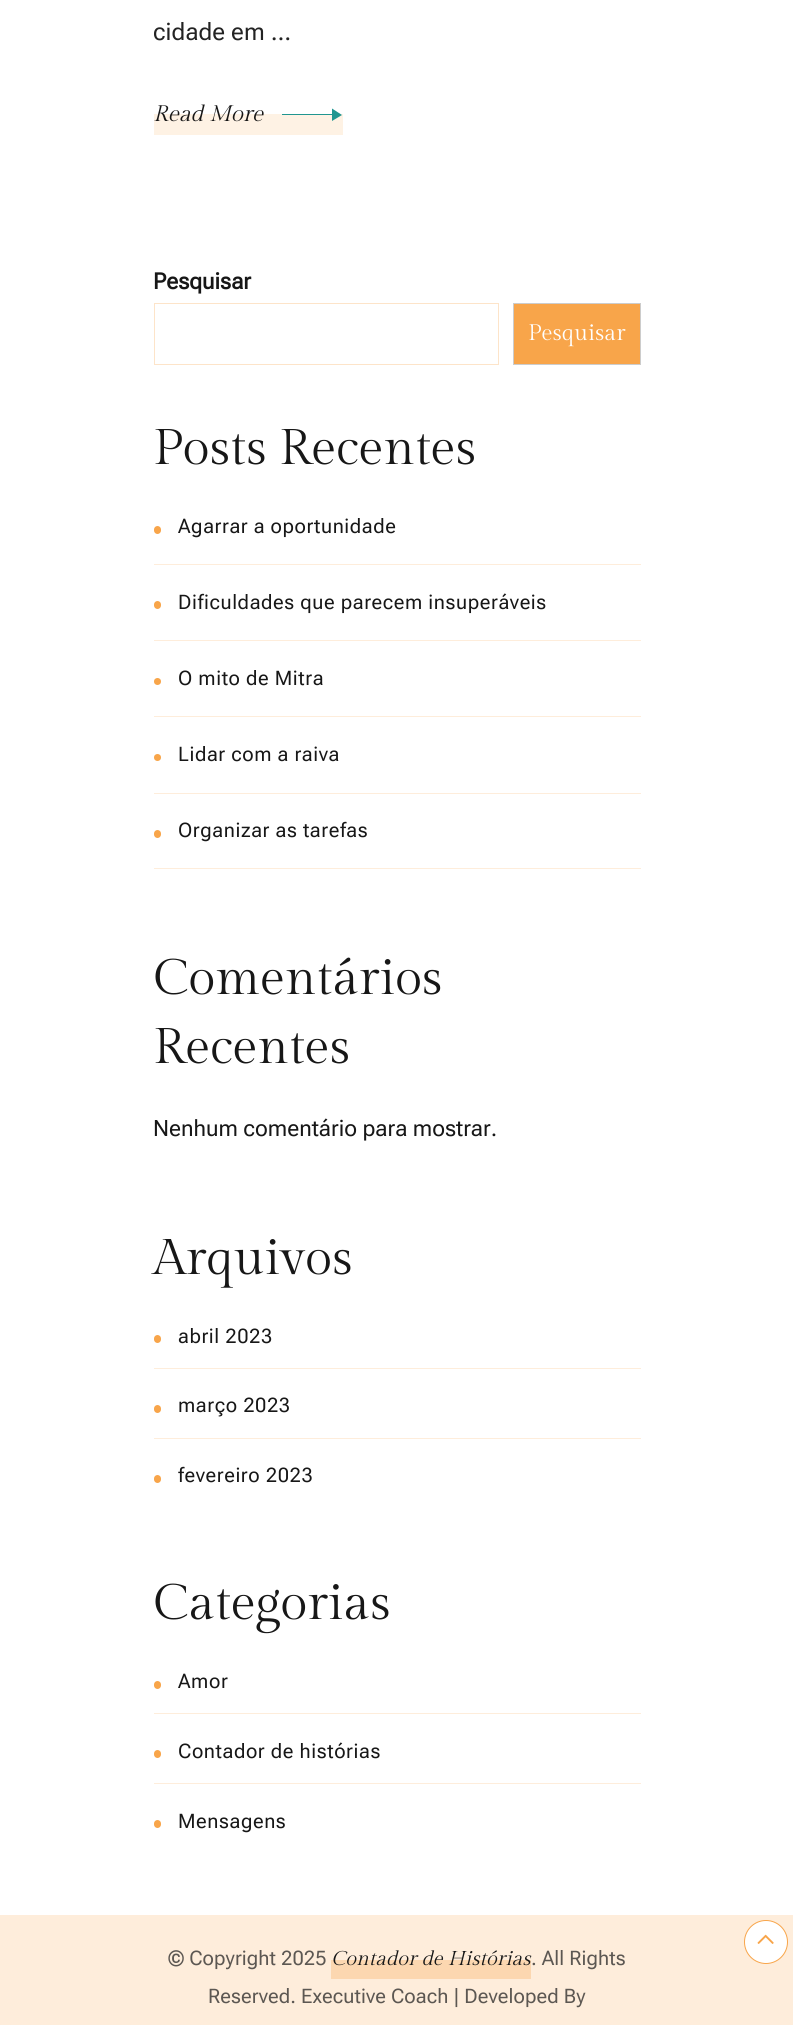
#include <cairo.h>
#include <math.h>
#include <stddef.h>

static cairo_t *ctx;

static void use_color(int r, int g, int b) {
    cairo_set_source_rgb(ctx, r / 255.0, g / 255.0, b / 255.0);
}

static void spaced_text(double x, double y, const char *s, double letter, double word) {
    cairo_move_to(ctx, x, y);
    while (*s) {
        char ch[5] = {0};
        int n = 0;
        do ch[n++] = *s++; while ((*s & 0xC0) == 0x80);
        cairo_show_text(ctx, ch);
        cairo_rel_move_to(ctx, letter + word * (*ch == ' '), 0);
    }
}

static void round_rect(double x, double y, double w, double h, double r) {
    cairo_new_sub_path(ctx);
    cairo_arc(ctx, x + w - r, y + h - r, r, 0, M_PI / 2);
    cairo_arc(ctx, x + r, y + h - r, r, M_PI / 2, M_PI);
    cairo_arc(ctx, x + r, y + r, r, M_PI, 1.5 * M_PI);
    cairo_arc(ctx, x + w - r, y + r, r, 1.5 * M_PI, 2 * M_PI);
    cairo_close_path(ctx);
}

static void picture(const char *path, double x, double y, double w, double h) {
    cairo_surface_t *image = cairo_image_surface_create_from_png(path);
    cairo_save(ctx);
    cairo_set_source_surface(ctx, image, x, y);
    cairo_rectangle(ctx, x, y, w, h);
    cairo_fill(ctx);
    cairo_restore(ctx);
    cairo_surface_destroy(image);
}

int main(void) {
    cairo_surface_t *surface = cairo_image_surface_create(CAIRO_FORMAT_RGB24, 793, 2025);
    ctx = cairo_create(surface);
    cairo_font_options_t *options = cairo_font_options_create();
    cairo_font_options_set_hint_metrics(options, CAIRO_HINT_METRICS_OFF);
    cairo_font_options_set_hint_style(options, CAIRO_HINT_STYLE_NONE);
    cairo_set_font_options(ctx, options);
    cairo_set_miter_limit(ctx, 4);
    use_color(255, 255, 255);
    cairo_paint(ctx);
    cairo_select_font_face(ctx, "Roboto Flex", CAIRO_FONT_SLANT_NORMAL, CAIRO_FONT_WEIGHT_NORMAL);
    cairo_set_font_size(ctx, 24);
    use_color(35, 35, 35);
    spaced_text(153, 40, "cidade em …", 0.1, 0);
    use_color(254, 242, 228);
    cairo_rectangle(ctx, 154, 114, 189, 21);
    cairo_fill(ctx);
    cairo_select_font_face(ctx, "Gilda Display", CAIRO_FONT_SLANT_ITALIC, CAIRO_FONT_WEIGHT_NORMAL);
    cairo_set_font_size(ctx, 22.5);
    use_color(23, 23, 23);
    cairo_move_to(ctx, 153, 121);
    cairo_show_text(ctx, "Read More");
    use_color(32, 150, 144);
    cairo_new_path(ctx);
    cairo_move_to(ctx, 342, 115);
    cairo_line_to(ctx, 332, 121);
    cairo_line_to(ctx, 332, 108.5);
    cairo_close_path(ctx);
    cairo_fill(ctx);
    cairo_rectangle(ctx, 282, 114, 51, 1);
    cairo_fill(ctx);
    cairo_select_font_face(ctx, "Roboto Flex", CAIRO_FONT_SLANT_NORMAL, CAIRO_FONT_WEIGHT_BOLD);
    use_color(23, 23, 23);
    cairo_move_to(ctx, 153, 289);
    cairo_show_text(ctx, "Pesquisar");
    cairo_rectangle(ctx, 154.5, 303.5, 344, 61);
    use_color(253, 228, 201);
    cairo_set_line_width(ctx, 1);
    cairo_stroke(ctx);
    use_color(248, 165, 74);
    cairo_rectangle(ctx, 513.5, 303.5, 127, 61);
    cairo_fill_preserve(ctx);
    use_color(204, 204, 204);
    cairo_stroke(ctx);
    cairo_select_font_face(ctx, "Gilda Display", CAIRO_FONT_SLANT_NORMAL, CAIRO_FONT_WEIGHT_NORMAL);
    use_color(255, 255, 255);
    cairo_move_to(ctx, 528, 340);
    cairo_show_text(ctx, "Pesquisar");
    cairo_set_font_size(ctx, 50);
    use_color(23, 23, 23);
    cairo_move_to(ctx, 153, 464);
    cairo_show_text(ctx, "Posts Recentes");
    use_color(254, 237, 219);
    cairo_rectangle(ctx, 154, 564, 487, 1);
    cairo_fill(ctx);
    use_color(248, 165, 74);
    round_rect(154, 526, 7, 8, 3.5);
    cairo_fill(ctx);
    cairo_select_font_face(ctx, "Roboto Flex", CAIRO_FONT_SLANT_NORMAL, CAIRO_FONT_WEIGHT_NORMAL);
    cairo_set_font_size(ctx, 20);
    use_color(23, 23, 23);
    spaced_text(178, 533, "Agarrar a oportunidade", 0.6, 0);
    use_color(254, 237, 219);
    cairo_rectangle(ctx, 154, 640, 487, 1);
    cairo_fill(ctx);
    use_color(248, 165, 74);
    round_rect(154, 601, 7, 8, 3.5);
    cairo_fill(ctx);
    use_color(23, 23, 23);
    spaced_text(178, 609, "Dificuldades que parecem insuperáveis", 0.6, 0);
    use_color(254, 237, 219);
    cairo_rectangle(ctx, 154, 716, 487, 1);
    cairo_fill(ctx);
    use_color(248, 165, 74);
    cairo_arc(ctx, 157.5, 681.5, 3.5, 0, 2 * M_PI);
    cairo_fill(ctx);
    use_color(23, 23, 23);
    spaced_text(178, 685, "O mito de Mitra", 0.6, 0);
    use_color(254, 237, 219);
    cairo_rectangle(ctx, 154, 793, 487, 1);
    cairo_fill(ctx);
    use_color(248, 165, 74);
    cairo_arc(ctx, 157.5, 757.5, 3.5, 0, 2 * M_PI);
    cairo_fill(ctx);
    use_color(23, 23, 23);
    spaced_text(178, 761, "Lidar com a raiva", 0.6, 0);
    use_color(254, 237, 219);
    cairo_rectangle(ctx, 154, 868, 487, 1);
    cairo_fill(ctx);
    use_color(248, 165, 74);
    round_rect(154, 830, 7, 8, 3.5);
    cairo_fill(ctx);
    use_color(23, 23, 23);
    spaced_text(178, 837, "Organizar as tarefas", 0.6, 0);
    cairo_select_font_face(ctx, "Gilda Display", CAIRO_FONT_SLANT_NORMAL, CAIRO_FONT_WEIGHT_NORMAL);
    cairo_set_font_size(ctx, 50);
    cairo_move_to(ctx, 153, 994);
    cairo_show_text(ctx, "Comentários");
    cairo_move_to(ctx, 153, 1063);
    cairo_show_text(ctx, "Recentes");
    cairo_select_font_face(ctx, "Roboto Flex", CAIRO_FONT_SLANT_NORMAL, CAIRO_FONT_WEIGHT_NORMAL);
    cairo_set_font_size(ctx, 22.5);
    cairo_move_to(ctx, 153, 1136);
    cairo_show_text(ctx, "Nenhum comentário para mostrar.");
    cairo_select_font_face(ctx, "Gilda Display", CAIRO_FONT_SLANT_NORMAL, CAIRO_FONT_WEIGHT_NORMAL);
    cairo_set_font_size(ctx, 50);
    cairo_move_to(ctx, 153, 1274);
    cairo_show_text(ctx, "Arquivos");
    use_color(254, 237, 219);
    cairo_rectangle(ctx, 154, 1368, 487, 1);
    cairo_fill(ctx);
    use_color(248, 165, 74);
    round_rect(154, 1335, 7, 8, 3.5);
    cairo_fill(ctx);
    cairo_select_font_face(ctx, "Roboto Flex", CAIRO_FONT_SLANT_NORMAL, CAIRO_FONT_WEIGHT_NORMAL);
    cairo_set_font_size(ctx, 20);
    use_color(23, 23, 23);
    spaced_text(178, 1343, "abril 2023", 0.6, 0);
    use_color(254, 237, 219);
    cairo_rectangle(ctx, 154, 1438, 487, 1);
    cairo_fill(ctx);
    use_color(248, 165, 74);
    round_rect(154, 1405, 7, 8, 3.5);
    cairo_fill(ctx);
    use_color(23, 23, 23);
    spaced_text(178, 1412, "março 2023", 0.6, 0);
    use_color(248, 165, 74);
    round_rect(154, 1475, 7, 8, 3.5);
    cairo_fill(ctx);
    use_color(23, 23, 23);
    spaced_text(178, 1482, "fevereiro 2023", 0.6, 0);
    cairo_select_font_face(ctx, "Gilda Display", CAIRO_FONT_SLANT_NORMAL, CAIRO_FONT_WEIGHT_NORMAL);
    cairo_set_font_size(ctx, 50);
    cairo_move_to(ctx, 153, 1619);
    cairo_show_text(ctx, "Categorias");
    use_color(254, 237, 219);
    cairo_rectangle(ctx, 154, 1713, 487, 1);
    cairo_fill(ctx);
    use_color(248, 165, 74);
    round_rect(154, 1681, 7, 8, 3.5);
    cairo_fill(ctx);
    cairo_select_font_face(ctx, "Roboto Flex", CAIRO_FONT_SLANT_NORMAL, CAIRO_FONT_WEIGHT_NORMAL);
    cairo_set_font_size(ctx, 20);
    use_color(23, 23, 23);
    spaced_text(178, 1688, "Amor", 0.6, 0);
    use_color(254, 237, 219);
    cairo_rectangle(ctx, 154, 1783, 487, 1);
    cairo_fill(ctx);
    use_color(248, 165, 74);
    round_rect(154, 1750, 7, 8, 3.5);
    cairo_fill(ctx);
    use_color(23, 23, 23);
    spaced_text(178, 1758, "Contador de histórias", 0.6, 0);
    use_color(248, 165, 74);
    round_rect(154, 1820, 7, 8, 3.5);
    cairo_fill(ctx);
    use_color(23, 23, 23);
    spaced_text(178, 1828, "Mensagens", 0.6, 0);
    use_color(254, 237, 219);
    cairo_rectangle(ctx, 0, 1915, 793, 110);
    cairo_fill(ctx);
    use_color(255, 255, 255);
    cairo_arc(ctx, 766, 1942, 21.5, 0, 2 * M_PI);
    cairo_fill_preserve(ctx);
    use_color(248, 165, 74);
    cairo_stroke(ctx);
    picture("img1.png", 757, 1934, 17, 10);
    use_color(92, 87, 82);
    spaced_text(168, 1965, "© Copyright 2025", 0.1, 0);
    use_color(252, 215, 176);
    cairo_rectangle(ctx, 331, 1960, 200, 19);
    cairo_fill(ctx);
    use_color(92, 87, 82);
    spaced_text(531, 1965, ". All Rights", 0.1, 0);
    cairo_select_font_face(ctx, "Gilda Display", CAIRO_FONT_SLANT_ITALIC, CAIRO_FONT_WEIGHT_NORMAL);
    use_color(23, 23, 23);
    spaced_text(331, 1965, "Contador de Histórias", 0.1, 0);
    cairo_select_font_face(ctx, "Roboto Flex", CAIRO_FONT_SLANT_NORMAL, CAIRO_FONT_WEIGHT_NORMAL);
    use_color(92, 87, 82);
    spaced_text(208, 2003, "Reserved. Executive Coach | Developed By", 0.1, 0);
    cairo_surface_write_to_png(surface, "result.png");
    cairo_font_options_destroy(options);
    cairo_destroy(ctx);
    cairo_surface_destroy(surface);
    return 0;
}
